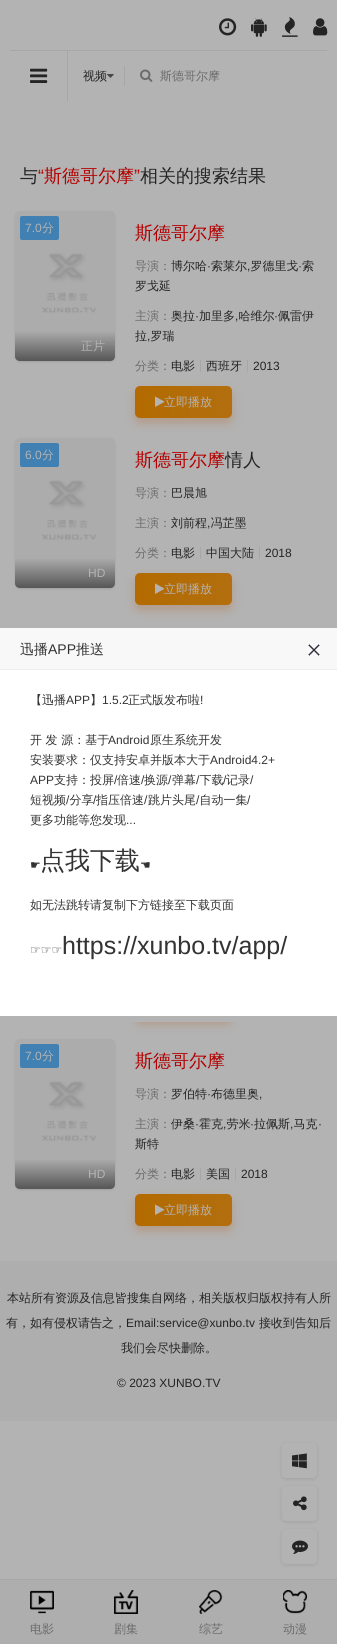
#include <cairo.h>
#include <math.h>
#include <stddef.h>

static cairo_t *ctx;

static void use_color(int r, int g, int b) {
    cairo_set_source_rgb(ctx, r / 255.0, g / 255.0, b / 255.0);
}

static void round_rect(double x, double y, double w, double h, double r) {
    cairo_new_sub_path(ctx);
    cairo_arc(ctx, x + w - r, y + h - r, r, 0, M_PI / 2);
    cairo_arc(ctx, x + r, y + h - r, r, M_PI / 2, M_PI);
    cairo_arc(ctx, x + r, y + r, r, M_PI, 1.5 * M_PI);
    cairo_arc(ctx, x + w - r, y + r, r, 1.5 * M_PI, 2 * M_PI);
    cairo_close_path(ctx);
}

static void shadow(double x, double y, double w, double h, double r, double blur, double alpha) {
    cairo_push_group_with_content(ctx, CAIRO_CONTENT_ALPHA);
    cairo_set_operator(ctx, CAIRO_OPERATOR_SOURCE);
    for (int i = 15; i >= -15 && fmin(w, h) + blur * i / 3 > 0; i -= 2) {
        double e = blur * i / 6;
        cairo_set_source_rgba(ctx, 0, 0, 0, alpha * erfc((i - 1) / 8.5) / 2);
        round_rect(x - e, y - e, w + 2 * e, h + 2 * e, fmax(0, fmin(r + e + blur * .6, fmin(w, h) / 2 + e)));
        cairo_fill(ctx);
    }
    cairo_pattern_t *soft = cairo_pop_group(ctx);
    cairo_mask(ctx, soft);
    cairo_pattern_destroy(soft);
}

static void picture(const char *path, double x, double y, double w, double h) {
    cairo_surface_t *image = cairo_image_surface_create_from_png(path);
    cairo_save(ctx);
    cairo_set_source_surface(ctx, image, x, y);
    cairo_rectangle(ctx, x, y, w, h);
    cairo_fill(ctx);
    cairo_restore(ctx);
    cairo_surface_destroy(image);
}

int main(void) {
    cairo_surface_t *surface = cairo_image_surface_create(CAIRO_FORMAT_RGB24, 337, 1644);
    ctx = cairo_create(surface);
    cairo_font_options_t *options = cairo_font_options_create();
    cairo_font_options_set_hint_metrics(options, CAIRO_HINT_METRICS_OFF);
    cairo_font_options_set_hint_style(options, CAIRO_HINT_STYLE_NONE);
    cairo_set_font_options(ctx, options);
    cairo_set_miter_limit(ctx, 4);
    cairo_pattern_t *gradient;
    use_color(179, 179, 179);
    cairo_paint(ctx);
    picture("img1.png", 219, 18, 18, 18);
    picture("img2.png", 251, 18, 16, 19);
    picture("img3.png", 282, 17, 16, 20);
    picture("img4.png", 313, 18, 15, 18);
    use_color(167, 167, 167);
    cairo_rectangle(ctx, 10, 50, 317, 1);
    cairo_fill(ctx);
    cairo_rectangle(ctx, 67, 51, 1, 50);
    cairo_fill(ctx);
    picture("img5.png", 30, 68, 18, 15);
    cairo_rectangle(ctx, 124, 66, 1, 20);
    cairo_fill(ctx);
    cairo_select_font_face(ctx, "WenQuanYi Zen Hei Medium", CAIRO_FONT_SLANT_NORMAL, CAIRO_FONT_WEIGHT_NORMAL);
    cairo_set_font_size(ctx, 12);
    use_color(36, 36, 36);
    cairo_move_to(ctx, 83, 80);
    cairo_show_text(ctx, "视频");
    picture("img6.png", 107, 74, 7, 4);
    picture("img7.png", 140, 69, 13, 13);
    use_color(107, 107, 107);
    cairo_move_to(ctx, 160, 80);
    cairo_show_text(ctx, "斯德哥尔摩");
    cairo_set_font_size(ctx, 18);
    use_color(36, 36, 36);
    cairo_move_to(ctx, 20, 182);
    cairo_show_text(ctx, "与");
    cairo_select_font_face(ctx, "Liberation Sans", CAIRO_FONT_SLANT_NORMAL, CAIRO_FONT_WEIGHT_NORMAL);
    use_color(179, 0, 0);
    cairo_move_to(ctx, 38, 182);
    cairo_show_text(ctx, "“");
    cairo_select_font_face(ctx, "WenQuanYi Zen Hei Medium", CAIRO_FONT_SLANT_NORMAL, CAIRO_FONT_WEIGHT_NORMAL);
    cairo_move_to(ctx, 44, 182);
    cairo_show_text(ctx, "斯德哥尔摩");
    cairo_select_font_face(ctx, "Liberation Sans", CAIRO_FONT_SLANT_NORMAL, CAIRO_FONT_WEIGHT_NORMAL);
    cairo_move_to(ctx, 134, 182);
    cairo_show_text(ctx, "”");
    cairo_select_font_face(ctx, "WenQuanYi Zen Hei Medium", CAIRO_FONT_SLANT_NORMAL, CAIRO_FONT_WEIGHT_NORMAL);
    use_color(36, 36, 36);
    cairo_move_to(ctx, 140, 182);
    cairo_show_text(ctx, "相关的搜索结果");
    use_color(0, 0, 0);
    shadow(15, 212, 100, 150, 5, 1, 0.1);
    picture("img8.png", 15, 211, 100, 150);
    use_color(64, 128, 178);
    round_rect(20, 216, 39, 24, 2);
    cairo_fill(ctx);
    cairo_select_font_face(ctx, "Liberation Sans", CAIRO_FONT_SLANT_NORMAL, CAIRO_FONT_WEIGHT_NORMAL);
    cairo_set_font_size(ctx, 12);
    use_color(179, 179, 179);
    cairo_move_to(ctx, 25, 232);
    cairo_show_text(ctx, "7.0");
    cairo_select_font_face(ctx, "WenQuanYi Zen Hei Medium", CAIRO_FONT_SLANT_NORMAL, CAIRO_FONT_WEIGHT_NORMAL);
    cairo_move_to(ctx, 42, 232);
    cairo_show_text(ctx, "分");
    gradient = cairo_pattern_create_linear(65, 331, 65, 361);
    cairo_pattern_add_color_stop_rgba(gradient, 0, 0, 0, 0, 0);
    cairo_pattern_add_color_stop_rgba(gradient, 1, 0, 0, 0, 0.5);
    cairo_set_source(ctx, gradient);
    cairo_pattern_destroy(gradient);
    cairo_new_path(ctx);
    cairo_move_to(ctx, 15, 331);
    cairo_line_to(ctx, 115, 331);
    cairo_line_to(ctx, 115, 356);
    cairo_curve_to(ctx, 115, 359, 113, 361, 110, 361);
    cairo_line_to(ctx, 20, 361);
    cairo_curve_to(ctx, 17, 361, 15, 359, 15, 356);
    cairo_close_path(ctx);
    cairo_fill(ctx);
    use_color(179, 179, 179);
    cairo_move_to(ctx, 81, 350);
    cairo_show_text(ctx, "正片");
    cairo_set_font_size(ctx, 18);
    use_color(179, 0, 0);
    cairo_move_to(ctx, 135, 239);
    cairo_show_text(ctx, "斯德哥尔摩");
    cairo_set_font_size(ctx, 12);
    use_color(107, 107, 107);
    cairo_move_to(ctx, 135, 270);
    cairo_show_text(ctx, "导演：");
    use_color(36, 36, 36);
    cairo_move_to(ctx, 171, 270);
    cairo_show_text(ctx, "博尔哈");
    cairo_select_font_face(ctx, "Liberation Sans", CAIRO_FONT_SLANT_NORMAL, CAIRO_FONT_WEIGHT_NORMAL);
    cairo_move_to(ctx, 207, 270);
    cairo_show_text(ctx, "·");
    cairo_select_font_face(ctx, "WenQuanYi Zen Hei Medium", CAIRO_FONT_SLANT_NORMAL, CAIRO_FONT_WEIGHT_NORMAL);
    cairo_move_to(ctx, 211, 270);
    cairo_show_text(ctx, "索莱尔 罗德里戈");
    cairo_select_font_face(ctx, "Liberation Sans", CAIRO_FONT_SLANT_NORMAL, CAIRO_FONT_WEIGHT_NORMAL);
    cairo_move_to(ctx, 298, 270);
    cairo_show_text(ctx, "·");
    cairo_select_font_face(ctx, "WenQuanYi Zen Hei Medium", CAIRO_FONT_SLANT_NORMAL, CAIRO_FONT_WEIGHT_NORMAL);
    cairo_move_to(ctx, 302, 270);
    cairo_show_text(ctx, "索");
    cairo_select_font_face(ctx, "Liberation Sans", CAIRO_FONT_SLANT_NORMAL, CAIRO_FONT_WEIGHT_NORMAL);
    cairo_move_to(ctx, 247, 270);
    cairo_show_text(ctx, ",");
    cairo_select_font_face(ctx, "WenQuanYi Zen Hei Medium", CAIRO_FONT_SLANT_NORMAL, CAIRO_FONT_WEIGHT_NORMAL);
    cairo_move_to(ctx, 135, 290);
    cairo_show_text(ctx, "罗戈延");
    use_color(107, 107, 107);
    cairo_move_to(ctx, 135, 320);
    cairo_show_text(ctx, "主演：");
    use_color(36, 36, 36);
    cairo_move_to(ctx, 171, 320);
    cairo_show_text(ctx, "奥拉");
    cairo_select_font_face(ctx, "Liberation Sans", CAIRO_FONT_SLANT_NORMAL, CAIRO_FONT_WEIGHT_NORMAL);
    cairo_move_to(ctx, 195, 320);
    cairo_show_text(ctx, "·");
    cairo_select_font_face(ctx, "WenQuanYi Zen Hei Medium", CAIRO_FONT_SLANT_NORMAL, CAIRO_FONT_WEIGHT_NORMAL);
    cairo_move_to(ctx, 199, 320);
    cairo_show_text(ctx, "加里多 哈维尔");
    cairo_select_font_face(ctx, "Liberation Sans", CAIRO_FONT_SLANT_NORMAL, CAIRO_FONT_WEIGHT_NORMAL);
    cairo_move_to(ctx, 274, 320);
    cairo_show_text(ctx, "·");
    cairo_select_font_face(ctx, "WenQuanYi Zen Hei Medium", CAIRO_FONT_SLANT_NORMAL, CAIRO_FONT_WEIGHT_NORMAL);
    cairo_move_to(ctx, 278, 320);
    cairo_show_text(ctx, "佩雷伊");
    cairo_select_font_face(ctx, "Liberation Sans", CAIRO_FONT_SLANT_NORMAL, CAIRO_FONT_WEIGHT_NORMAL);
    cairo_move_to(ctx, 235, 320);
    cairo_show_text(ctx, ",");
    cairo_select_font_face(ctx, "WenQuanYi Zen Hei Medium", CAIRO_FONT_SLANT_NORMAL, CAIRO_FONT_WEIGHT_NORMAL);
    cairo_move_to(ctx, 135, 340);
    cairo_show_text(ctx, "拉 罗瑞");
    cairo_select_font_face(ctx, "Liberation Sans", CAIRO_FONT_SLANT_NORMAL, CAIRO_FONT_WEIGHT_NORMAL);
    cairo_move_to(ctx, 147, 340);
    cairo_show_text(ctx, ",");
    cairo_select_font_face(ctx, "WenQuanYi Zen Hei Medium", CAIRO_FONT_SLANT_NORMAL, CAIRO_FONT_WEIGHT_NORMAL);
    use_color(107, 107, 107);
    cairo_move_to(ctx, 135, 370);
    cairo_show_text(ctx, "分类：");
    use_color(36, 36, 36);
    cairo_move_to(ctx, 171, 370);
    cairo_show_text(ctx, "电影");
    use_color(167, 167, 167);
    cairo_rectangle(ctx, 200, 360, 1, 12);
    cairo_fill(ctx);
    use_color(36, 36, 36);
    cairo_move_to(ctx, 206, 370);
    cairo_show_text(ctx, "西班牙");
    use_color(167, 167, 167);
    cairo_rectangle(ctx, 247, 360, 1, 12);
    cairo_fill(ctx);
    cairo_select_font_face(ctx, "Liberation Sans", CAIRO_FONT_SLANT_NORMAL, CAIRO_FONT_WEIGHT_NORMAL);
    use_color(36, 36, 36);
    cairo_move_to(ctx, 253, 370);
    cairo_show_text(ctx, "2013");
    use_color(179, 78, 0);
    shadow(135, 391, 97, 32, 5, 5, 0.25);
    gradient = cairo_pattern_create_linear(135, 402, 232, 402);
    cairo_pattern_add_color_stop_rgba(gradient, 0, 0.702, 0.42, 0, 1);
    cairo_pattern_add_color_stop_rgba(gradient, 1, 0.702, 0.435, 0.059, 1);
    cairo_set_source(ctx, gradient);
    cairo_pattern_destroy(gradient);
    round_rect(135, 386, 97, 32, 5);
    cairo_fill(ctx);
    picture("img9.png", 155, 396, 10, 11);
    cairo_select_font_face(ctx, "WenQuanYi Zen Hei Medium", CAIRO_FONT_SLANT_NORMAL, CAIRO_FONT_WEIGHT_NORMAL);
    use_color(179, 179, 179);
    cairo_move_to(ctx, 164, 406);
    cairo_show_text(ctx, "立即播放");
    use_color(0, 0, 0);
    shadow(15, 439, 100, 150, 5, 1, 0.1);
    picture("img8.png", 15, 438, 100, 150);
    use_color(64, 128, 178);
    round_rect(20, 443, 39, 24, 2);
    cairo_fill(ctx);
    cairo_select_font_face(ctx, "Liberation Sans", CAIRO_FONT_SLANT_NORMAL, CAIRO_FONT_WEIGHT_NORMAL);
    use_color(179, 179, 179);
    cairo_move_to(ctx, 25, 459);
    cairo_show_text(ctx, "6.0");
    cairo_select_font_face(ctx, "WenQuanYi Zen Hei Medium", CAIRO_FONT_SLANT_NORMAL, CAIRO_FONT_WEIGHT_NORMAL);
    cairo_move_to(ctx, 42, 459);
    cairo_show_text(ctx, "分");
    gradient = cairo_pattern_create_linear(65, 558, 65, 588);
    cairo_pattern_add_color_stop_rgba(gradient, 0, 0, 0, 0, 0);
    cairo_pattern_add_color_stop_rgba(gradient, 1, 0, 0, 0, 0.5);
    cairo_set_source(ctx, gradient);
    cairo_pattern_destroy(gradient);
    cairo_new_path(ctx);
    cairo_move_to(ctx, 15, 558);
    cairo_line_to(ctx, 115, 558);
    cairo_line_to(ctx, 115, 583);
    cairo_curve_to(ctx, 115, 586, 113, 588, 110, 588);
    cairo_line_to(ctx, 20, 588);
    cairo_curve_to(ctx, 17, 588, 15, 586, 15, 583);
    cairo_close_path(ctx);
    cairo_fill(ctx);
    cairo_select_font_face(ctx, "Liberation Sans", CAIRO_FONT_SLANT_NORMAL, CAIRO_FONT_WEIGHT_NORMAL);
    use_color(179, 179, 179);
    cairo_move_to(ctx, 88, 577);
    cairo_show_text(ctx, "HD");
    cairo_select_font_face(ctx, "WenQuanYi Zen Hei Medium", CAIRO_FONT_SLANT_NORMAL, CAIRO_FONT_WEIGHT_NORMAL);
    cairo_set_font_size(ctx, 18);
    use_color(179, 0, 0);
    cairo_move_to(ctx, 135, 466);
    cairo_show_text(ctx, "斯德哥尔摩");
    use_color(36, 36, 36);
    cairo_move_to(ctx, 225, 466);
    cairo_show_text(ctx, "情人");
    cairo_set_font_size(ctx, 12);
    use_color(107, 107, 107);
    cairo_move_to(ctx, 135, 497);
    cairo_show_text(ctx, "导演：");
    use_color(36, 36, 36);
    cairo_move_to(ctx, 171, 497);
    cairo_show_text(ctx, "巴晨旭");
    use_color(107, 107, 107);
    cairo_move_to(ctx, 135, 527);
    cairo_show_text(ctx, "主演：");
    use_color(36, 36, 36);
    cairo_move_to(ctx, 171, 527);
    cairo_show_text(ctx, "刘前程 冯芷墨");
    cairo_select_font_face(ctx, "Liberation Sans", CAIRO_FONT_SLANT_NORMAL, CAIRO_FONT_WEIGHT_NORMAL);
    cairo_move_to(ctx, 207, 527);
    cairo_show_text(ctx, ",");
    cairo_select_font_face(ctx, "WenQuanYi Zen Hei Medium", CAIRO_FONT_SLANT_NORMAL, CAIRO_FONT_WEIGHT_NORMAL);
    use_color(107, 107, 107);
    cairo_move_to(ctx, 135, 557);
    cairo_show_text(ctx, "分类：");
    use_color(36, 36, 36);
    cairo_move_to(ctx, 171, 557);
    cairo_show_text(ctx, "电影");
    use_color(167, 167, 167);
    cairo_rectangle(ctx, 200, 547, 1, 12);
    cairo_fill(ctx);
    use_color(36, 36, 36);
    cairo_move_to(ctx, 206, 557);
    cairo_show_text(ctx, "中国大陆");
    use_color(167, 167, 167);
    cairo_rectangle(ctx, 259, 547, 1, 12);
    cairo_fill(ctx);
    cairo_select_font_face(ctx, "Liberation Sans", CAIRO_FONT_SLANT_NORMAL, CAIRO_FONT_WEIGHT_NORMAL);
    use_color(36, 36, 36);
    cairo_move_to(ctx, 265, 557);
    cairo_show_text(ctx, "2018");
    use_color(179, 78, 0);
    shadow(135, 578, 97, 32, 5, 5, 0.25);
    gradient = cairo_pattern_create_linear(135, 589, 232, 589);
    cairo_pattern_add_color_stop_rgba(gradient, 0, 0.702, 0.42, 0, 1);
    cairo_pattern_add_color_stop_rgba(gradient, 1, 0.702, 0.435, 0.059, 1);
    cairo_set_source(ctx, gradient);
    cairo_pattern_destroy(gradient);
    round_rect(135, 573, 97, 32, 5);
    cairo_fill(ctx);
    picture("img9.png", 155, 583, 10, 11);
    cairo_select_font_face(ctx, "WenQuanYi Zen Hei Medium", CAIRO_FONT_SLANT_NORMAL, CAIRO_FONT_WEIGHT_NORMAL);
    use_color(179, 179, 179);
    cairo_move_to(ctx, 164, 593);
    cairo_show_text(ctx, "立即播放");
    use_color(179, 78, 0);
    shadow(135, 992, 97, 32, 5, 5, 0.25);
    use_color(0, 0, 0);
    shadow(15, 1040, 100, 150, 5, 1, 0.1);
    picture("img10.png", 15, 1039, 100, 150);
    use_color(64, 128, 178);
    round_rect(20, 1044, 39, 24, 2);
    cairo_fill(ctx);
    cairo_select_font_face(ctx, "Liberation Sans", CAIRO_FONT_SLANT_NORMAL, CAIRO_FONT_WEIGHT_NORMAL);
    use_color(179, 179, 179);
    cairo_move_to(ctx, 25, 1060);
    cairo_show_text(ctx, "7.0");
    cairo_select_font_face(ctx, "WenQuanYi Zen Hei Medium", CAIRO_FONT_SLANT_NORMAL, CAIRO_FONT_WEIGHT_NORMAL);
    cairo_move_to(ctx, 42, 1060);
    cairo_show_text(ctx, "分");
    gradient = cairo_pattern_create_linear(65, 1159, 65, 1189);
    cairo_pattern_add_color_stop_rgba(gradient, 0, 0, 0, 0, 0);
    cairo_pattern_add_color_stop_rgba(gradient, 1, 0, 0, 0, 0.5);
    cairo_set_source(ctx, gradient);
    cairo_pattern_destroy(gradient);
    cairo_new_path(ctx);
    cairo_move_to(ctx, 15, 1159);
    cairo_line_to(ctx, 115, 1159);
    cairo_line_to(ctx, 115, 1184);
    cairo_curve_to(ctx, 115, 1187, 113, 1189, 110, 1189);
    cairo_line_to(ctx, 20, 1189);
    cairo_curve_to(ctx, 17, 1189, 15, 1187, 15, 1184);
    cairo_close_path(ctx);
    cairo_fill(ctx);
    cairo_select_font_face(ctx, "Liberation Sans", CAIRO_FONT_SLANT_NORMAL, CAIRO_FONT_WEIGHT_NORMAL);
    use_color(179, 179, 179);
    cairo_move_to(ctx, 88, 1178);
    cairo_show_text(ctx, "HD");
    cairo_select_font_face(ctx, "WenQuanYi Zen Hei Medium", CAIRO_FONT_SLANT_NORMAL, CAIRO_FONT_WEIGHT_NORMAL);
    cairo_set_font_size(ctx, 18);
    use_color(179, 0, 0);
    cairo_move_to(ctx, 135, 1067);
    cairo_show_text(ctx, "斯德哥尔摩");
    cairo_set_font_size(ctx, 12);
    use_color(107, 107, 107);
    cairo_move_to(ctx, 135, 1098);
    cairo_show_text(ctx, "导演：");
    use_color(36, 36, 36);
    cairo_move_to(ctx, 171, 1098);
    cairo_show_text(ctx, "罗伯特");
    cairo_select_font_face(ctx, "Liberation Sans", CAIRO_FONT_SLANT_NORMAL, CAIRO_FONT_WEIGHT_NORMAL);
    cairo_move_to(ctx, 207, 1098);
    cairo_show_text(ctx, "·");
    cairo_select_font_face(ctx, "WenQuanYi Zen Hei Medium", CAIRO_FONT_SLANT_NORMAL, CAIRO_FONT_WEIGHT_NORMAL);
    cairo_move_to(ctx, 211, 1098);
    cairo_show_text(ctx, "布德里奥");
    cairo_select_font_face(ctx, "Liberation Sans", CAIRO_FONT_SLANT_NORMAL, CAIRO_FONT_WEIGHT_NORMAL);
    cairo_move_to(ctx, 259, 1098);
    cairo_show_text(ctx, ",");
    cairo_select_font_face(ctx, "WenQuanYi Zen Hei Medium", CAIRO_FONT_SLANT_NORMAL, CAIRO_FONT_WEIGHT_NORMAL);
    use_color(107, 107, 107);
    cairo_move_to(ctx, 135, 1128);
    cairo_show_text(ctx, "主演：");
    use_color(36, 36, 36);
    cairo_move_to(ctx, 171, 1128);
    cairo_show_text(ctx, "伊桑");
    cairo_select_font_face(ctx, "Liberation Sans", CAIRO_FONT_SLANT_NORMAL, CAIRO_FONT_WEIGHT_NORMAL);
    cairo_move_to(ctx, 195, 1128);
    cairo_show_text(ctx, "·");
    cairo_select_font_face(ctx, "WenQuanYi Zen Hei Medium", CAIRO_FONT_SLANT_NORMAL, CAIRO_FONT_WEIGHT_NORMAL);
    cairo_move_to(ctx, 199, 1128);
    cairo_show_text(ctx, "霍克 劳米");
    cairo_select_font_face(ctx, "Liberation Sans", CAIRO_FONT_SLANT_NORMAL, CAIRO_FONT_WEIGHT_NORMAL);
    cairo_move_to(ctx, 250, 1128);
    cairo_show_text(ctx, "·");
    cairo_select_font_face(ctx, "WenQuanYi Zen Hei Medium", CAIRO_FONT_SLANT_NORMAL, CAIRO_FONT_WEIGHT_NORMAL);
    cairo_move_to(ctx, 254, 1128);
    cairo_show_text(ctx, "拉佩斯 马克");
    cairo_select_font_face(ctx, "Liberation Sans", CAIRO_FONT_SLANT_NORMAL, CAIRO_FONT_WEIGHT_NORMAL);
    cairo_move_to(ctx, 318, 1128);
    cairo_show_text(ctx, "·");
    cairo_move_to(ctx, 223, 1128);
    cairo_show_text(ctx, ",");
    cairo_move_to(ctx, 290, 1128);
    cairo_show_text(ctx, ",");
    cairo_select_font_face(ctx, "WenQuanYi Zen Hei Medium", CAIRO_FONT_SLANT_NORMAL, CAIRO_FONT_WEIGHT_NORMAL);
    cairo_move_to(ctx, 135, 1148);
    cairo_show_text(ctx, "斯特");
    use_color(107, 107, 107);
    cairo_move_to(ctx, 135, 1178);
    cairo_show_text(ctx, "分类：");
    use_color(36, 36, 36);
    cairo_move_to(ctx, 171, 1178);
    cairo_show_text(ctx, "电影");
    use_color(167, 167, 167);
    cairo_rectangle(ctx, 200, 1168, 1, 12);
    cairo_fill(ctx);
    use_color(36, 36, 36);
    cairo_move_to(ctx, 206, 1178);
    cairo_show_text(ctx, "美国");
    use_color(167, 167, 167);
    cairo_rectangle(ctx, 235, 1168, 1, 12);
    cairo_fill(ctx);
    cairo_select_font_face(ctx, "Liberation Sans", CAIRO_FONT_SLANT_NORMAL, CAIRO_FONT_WEIGHT_NORMAL);
    use_color(36, 36, 36);
    cairo_move_to(ctx, 241, 1178);
    cairo_show_text(ctx, "2018");
    use_color(179, 78, 0);
    shadow(135, 1199, 97, 32, 5, 5, 0.25);
    gradient = cairo_pattern_create_linear(135, 1210, 232, 1210);
    cairo_pattern_add_color_stop_rgba(gradient, 0, 0.702, 0.42, 0, 1);
    cairo_pattern_add_color_stop_rgba(gradient, 1, 0.702, 0.435, 0.059, 1);
    cairo_set_source(ctx, gradient);
    cairo_pattern_destroy(gradient);
    round_rect(135, 1194, 97, 32, 5);
    cairo_fill(ctx);
    picture("img9.png", 155, 1204, 10, 11);
    cairo_select_font_face(ctx, "WenQuanYi Zen Hei Medium", CAIRO_FONT_SLANT_NORMAL, CAIRO_FONT_WEIGHT_NORMAL);
    use_color(179, 179, 179);
    cairo_move_to(ctx, 164, 1214);
    cairo_show_text(ctx, "立即播放");
    use_color(255, 255, 255);
    cairo_rectangle(ctx, -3, 625, 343, 394);
    cairo_fill_preserve(ctx);
    use_color(179, 179, 179);
    cairo_set_line_width(ctx, 6);
    cairo_stroke(ctx);
    use_color(248, 248, 248);
    cairo_new_path(ctx);
    cairo_move_to(ctx, 2, 628);
    cairo_line_to(ctx, 336, 628);
    cairo_curve_to(ctx, 337, 628, 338, 629, 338, 630);
    cairo_line_to(ctx, 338, 670);
    cairo_line_to(ctx, 0, 670);
    cairo_line_to(ctx, 0, 630);
    cairo_curve_to(ctx, 0, 629, 1, 628, 2, 628);
    cairo_close_path(ctx);
    cairo_fill(ctx);
    use_color(238, 238, 238);
    cairo_rectangle(ctx, 0, 669, 337, 1);
    cairo_fill(ctx);
    cairo_set_font_size(ctx, 14);
    use_color(51, 51, 51);
    cairo_move_to(ctx, 20, 654);
    cairo_show_text(ctx, "迅播");
    cairo_select_font_face(ctx, "Liberation Sans", CAIRO_FONT_SLANT_NORMAL, CAIRO_FONT_WEIGHT_NORMAL);
    cairo_move_to(ctx, 48, 654);
    cairo_show_text(ctx, "APP");
    cairo_select_font_face(ctx, "WenQuanYi Zen Hei Medium", CAIRO_FONT_SLANT_NORMAL, CAIRO_FONT_WEIGHT_NORMAL);
    cairo_move_to(ctx, 76, 654);
    cairo_show_text(ctx, "推送");
    picture("img11.png", 308, 644, 12, 12);
    cairo_set_font_size(ctx, 12);
    cairo_move_to(ctx, 30, 704);
    cairo_show_text(ctx, "【迅播");
    cairo_select_font_face(ctx, "Liberation Sans", CAIRO_FONT_SLANT_NORMAL, CAIRO_FONT_WEIGHT_NORMAL);
    cairo_move_to(ctx, 66, 704);
    cairo_show_text(ctx, "APP");
    cairo_select_font_face(ctx, "WenQuanYi Zen Hei Medium", CAIRO_FONT_SLANT_NORMAL, CAIRO_FONT_WEIGHT_NORMAL);
    cairo_move_to(ctx, 90, 704);
    cairo_show_text(ctx, "】");
    cairo_select_font_face(ctx, "Liberation Sans", CAIRO_FONT_SLANT_NORMAL, CAIRO_FONT_WEIGHT_NORMAL);
    cairo_move_to(ctx, 102, 704);
    cairo_show_text(ctx, "1.5.2");
    cairo_select_font_face(ctx, "WenQuanYi Zen Hei Medium", CAIRO_FONT_SLANT_NORMAL, CAIRO_FONT_WEIGHT_NORMAL);
    cairo_move_to(ctx, 128, 704);
    cairo_show_text(ctx, "正式版发布啦");
    cairo_select_font_face(ctx, "Liberation Sans", CAIRO_FONT_SLANT_NORMAL, CAIRO_FONT_WEIGHT_NORMAL);
    cairo_move_to(ctx, 200, 704);
    cairo_show_text(ctx, "!");
    cairo_select_font_face(ctx, "WenQuanYi Zen Hei Medium", CAIRO_FONT_SLANT_NORMAL, CAIRO_FONT_WEIGHT_NORMAL);
    cairo_move_to(ctx, 30, 744);
    cairo_show_text(ctx, "开 发 源：基于");
    cairo_select_font_face(ctx, "Liberation Sans", CAIRO_FONT_SLANT_NORMAL, CAIRO_FONT_WEIGHT_NORMAL);
    cairo_move_to(ctx, 108, 744);
    cairo_show_text(ctx, "Android");
    cairo_select_font_face(ctx, "WenQuanYi Zen Hei Medium", CAIRO_FONT_SLANT_NORMAL, CAIRO_FONT_WEIGHT_NORMAL);
    cairo_move_to(ctx, 150, 744);
    cairo_show_text(ctx, "原生系统开发");
    cairo_move_to(ctx, 30, 764);
    cairo_show_text(ctx, "安装要求：仅支持安卓并版本大于");
    cairo_select_font_face(ctx, "Liberation Sans", CAIRO_FONT_SLANT_NORMAL, CAIRO_FONT_WEIGHT_NORMAL);
    cairo_move_to(ctx, 210, 764);
    cairo_show_text(ctx, "Android4.2+");
    cairo_move_to(ctx, 30, 784);
    cairo_show_text(ctx, "APP");
    cairo_select_font_face(ctx, "WenQuanYi Zen Hei Medium", CAIRO_FONT_SLANT_NORMAL, CAIRO_FONT_WEIGHT_NORMAL);
    cairo_move_to(ctx, 54, 784);
    cairo_show_text(ctx, "支持：投屏");
    cairo_select_font_face(ctx, "Liberation Sans", CAIRO_FONT_SLANT_NORMAL, CAIRO_FONT_WEIGHT_NORMAL);
    cairo_move_to(ctx, 114, 784);
    cairo_show_text(ctx, "/");
    cairo_select_font_face(ctx, "WenQuanYi Zen Hei Medium", CAIRO_FONT_SLANT_NORMAL, CAIRO_FONT_WEIGHT_NORMAL);
    cairo_move_to(ctx, 117, 784);
    cairo_show_text(ctx, "倍速");
    cairo_select_font_face(ctx, "Liberation Sans", CAIRO_FONT_SLANT_NORMAL, CAIRO_FONT_WEIGHT_NORMAL);
    cairo_move_to(ctx, 141, 784);
    cairo_show_text(ctx, "/");
    cairo_select_font_face(ctx, "WenQuanYi Zen Hei Medium", CAIRO_FONT_SLANT_NORMAL, CAIRO_FONT_WEIGHT_NORMAL);
    cairo_move_to(ctx, 144, 784);
    cairo_show_text(ctx, "换源");
    cairo_select_font_face(ctx, "Liberation Sans", CAIRO_FONT_SLANT_NORMAL, CAIRO_FONT_WEIGHT_NORMAL);
    cairo_move_to(ctx, 168, 784);
    cairo_show_text(ctx, "/");
    cairo_select_font_face(ctx, "WenQuanYi Zen Hei Medium", CAIRO_FONT_SLANT_NORMAL, CAIRO_FONT_WEIGHT_NORMAL);
    cairo_move_to(ctx, 172, 784);
    cairo_show_text(ctx, "弹幕 下载");
    cairo_select_font_face(ctx, "Liberation Sans", CAIRO_FONT_SLANT_NORMAL, CAIRO_FONT_WEIGHT_NORMAL);
    cairo_move_to(ctx, 223, 784);
    cairo_show_text(ctx, "/");
    cairo_select_font_face(ctx, "WenQuanYi Zen Hei Medium", CAIRO_FONT_SLANT_NORMAL, CAIRO_FONT_WEIGHT_NORMAL);
    cairo_move_to(ctx, 226, 784);
    cairo_show_text(ctx, "记录");
    cairo_select_font_face(ctx, "Liberation Sans", CAIRO_FONT_SLANT_NORMAL, CAIRO_FONT_WEIGHT_NORMAL);
    cairo_move_to(ctx, 196, 784);
    cairo_show_text(ctx, "/");
    cairo_move_to(ctx, 250, 784);
    cairo_show_text(ctx, "/");
    cairo_select_font_face(ctx, "WenQuanYi Zen Hei Medium", CAIRO_FONT_SLANT_NORMAL, CAIRO_FONT_WEIGHT_NORMAL);
    cairo_move_to(ctx, 30, 804);
    cairo_show_text(ctx, "短视频 分享");
    cairo_select_font_face(ctx, "Liberation Sans", CAIRO_FONT_SLANT_NORMAL, CAIRO_FONT_WEIGHT_NORMAL);
    cairo_move_to(ctx, 93, 804);
    cairo_show_text(ctx, "/");
    cairo_select_font_face(ctx, "WenQuanYi Zen Hei Medium", CAIRO_FONT_SLANT_NORMAL, CAIRO_FONT_WEIGHT_NORMAL);
    cairo_move_to(ctx, 96, 804);
    cairo_show_text(ctx, "指压倍速");
    cairo_select_font_face(ctx, "Liberation Sans", CAIRO_FONT_SLANT_NORMAL, CAIRO_FONT_WEIGHT_NORMAL);
    cairo_move_to(ctx, 144, 804);
    cairo_show_text(ctx, "/");
    cairo_select_font_face(ctx, "WenQuanYi Zen Hei Medium", CAIRO_FONT_SLANT_NORMAL, CAIRO_FONT_WEIGHT_NORMAL);
    cairo_move_to(ctx, 148, 804);
    cairo_show_text(ctx, "跳片头尾 自动一集");
    cairo_select_font_face(ctx, "Liberation Sans", CAIRO_FONT_SLANT_NORMAL, CAIRO_FONT_WEIGHT_NORMAL);
    cairo_move_to(ctx, 66, 804);
    cairo_show_text(ctx, "/");
    cairo_move_to(ctx, 196, 804);
    cairo_show_text(ctx, "/");
    cairo_move_to(ctx, 247, 804);
    cairo_show_text(ctx, "/");
    cairo_select_font_face(ctx, "WenQuanYi Zen Hei Medium", CAIRO_FONT_SLANT_NORMAL, CAIRO_FONT_WEIGHT_NORMAL);
    cairo_move_to(ctx, 30, 824);
    cairo_show_text(ctx, "更多功能等您发现");
    cairo_select_font_face(ctx, "Liberation Sans", CAIRO_FONT_SLANT_NORMAL, CAIRO_FONT_WEIGHT_NORMAL);
    cairo_move_to(ctx, 126, 824);
    cairo_show_text(ctx, "...");
    cairo_select_font_face(ctx, "DejaVu Sans", CAIRO_FONT_SLANT_NORMAL, CAIRO_FONT_WEIGHT_NORMAL);
    cairo_move_to(ctx, 30, 869);
    cairo_show_text(ctx, "☛");
    cairo_select_font_face(ctx, "WenQuanYi Zen Hei Medium", CAIRO_FONT_SLANT_NORMAL, CAIRO_FONT_WEIGHT_NORMAL);
    cairo_set_font_size(ctx, 25);
    cairo_move_to(ctx, 40, 869);
    cairo_show_text(ctx, "点我下载");
    cairo_select_font_face(ctx, "DejaVu Sans", CAIRO_FONT_SLANT_NORMAL, CAIRO_FONT_WEIGHT_NORMAL);
    cairo_set_font_size(ctx, 12);
    cairo_move_to(ctx, 140, 869);
    cairo_show_text(ctx, "☚");
    cairo_select_font_face(ctx, "WenQuanYi Zen Hei Medium", CAIRO_FONT_SLANT_NORMAL, CAIRO_FONT_WEIGHT_NORMAL);
    cairo_move_to(ctx, 30, 909);
    cairo_show_text(ctx, "如无法跳转请复制下方链接至下载页面");
    cairo_select_font_face(ctx, "DejaVu Sans", CAIRO_FONT_SLANT_NORMAL, CAIRO_FONT_WEIGHT_NORMAL);
    cairo_move_to(ctx, 30, 954);
    cairo_show_text(ctx, "☞☞☞");
    cairo_select_font_face(ctx, "Liberation Sans", CAIRO_FONT_SLANT_NORMAL, CAIRO_FONT_WEIGHT_NORMAL);
    cairo_set_font_size(ctx, 25);
    cairo_move_to(ctx, 62, 954);
    cairo_show_text(ctx, "https://xunbo.tv/app/");
    use_color(174, 174, 174);
    cairo_rectangle(ctx, 0, 1261, 337, 160);
    cairo_fill(ctx);
    cairo_select_font_face(ctx, "WenQuanYi Zen Hei Medium", CAIRO_FONT_SLANT_NORMAL, CAIRO_FONT_WEIGHT_NORMAL);
    cairo_set_font_size(ctx, 12);
    use_color(36, 36, 36);
    cairo_move_to(ctx, 7, 1302);
    cairo_show_text(ctx, "本站所有资源及信息皆搜集自网络，相关版权归版权持有人所");
    cairo_move_to(ctx, 6, 1327);
    cairo_show_text(ctx, "有，如有侵权请告之，");
    cairo_select_font_face(ctx, "Liberation Sans", CAIRO_FONT_SLANT_NORMAL, CAIRO_FONT_WEIGHT_NORMAL);
    cairo_move_to(ctx, 126, 1327);
    cairo_show_text(ctx, "Email:service@xunbo.tv");
    cairo_select_font_face(ctx, "WenQuanYi Zen Hei Medium", CAIRO_FONT_SLANT_NORMAL, CAIRO_FONT_WEIGHT_NORMAL);
    cairo_move_to(ctx, 259, 1327);
    cairo_show_text(ctx, "接收到告知后");
    cairo_move_to(ctx, 121, 1352);
    cairo_show_text(ctx, "我们会尽快删除。");
    cairo_select_font_face(ctx, "Liberation Sans", CAIRO_FONT_SLANT_NORMAL, CAIRO_FONT_WEIGHT_NORMAL);
    cairo_move_to(ctx, 117, 1387);
    cairo_show_text(ctx, "© 2023 XUNBO.TV");
    use_color(0, 0, 0);
    shadow(282, 1444, 35, 35, 4, 2, 0.1);
    use_color(179, 179, 179);
    round_rect(282, 1443, 35, 35, 4);
    cairo_fill(ctx);
    picture("img12.png", 292, 1453, 15, 16);
    use_color(0, 0, 0);
    shadow(282, 1487, 35, 35, 4, 2, 0.1);
    use_color(179, 179, 179);
    round_rect(282, 1486, 35, 35, 4);
    cairo_fill(ctx);
    picture("img13.png", 293, 1496, 14, 15);
    use_color(0, 0, 0);
    shadow(282, 1530, 35, 35, 4, 2, 0.1);
    use_color(179, 179, 179);
    round_rect(282, 1529, 35, 35, 4);
    cairo_fill(ctx);
    picture("img14.png", 292, 1540, 16, 14);
    use_color(174, 174, 174);
    cairo_rectangle(ctx, 0, 1580, 337, 64);
    cairo_fill(ctx);
    use_color(167, 167, 167);
    cairo_rectangle(ctx, 0, 1579, 337, 1);
    cairo_fill(ctx);
    picture("img15.png", 30, 1590, 24, 24);
    cairo_select_font_face(ctx, "WenQuanYi Zen Hei Medium", CAIRO_FONT_SLANT_NORMAL, CAIRO_FONT_WEIGHT_NORMAL);
    use_color(107, 107, 107);
    cairo_move_to(ctx, 30, 1633);
    cairo_show_text(ctx, "电影");
    picture("img16.png", 114, 1590, 24, 24);
    cairo_move_to(ctx, 114, 1633);
    cairo_show_text(ctx, "剧集");
    picture("img17.png", 199, 1590, 24, 24);
    cairo_move_to(ctx, 199, 1633);
    cairo_show_text(ctx, "综艺");
    picture("img18.png", 283, 1590, 24, 24);
    cairo_move_to(ctx, 283, 1633);
    cairo_show_text(ctx, "动漫");
    cairo_surface_write_to_png(surface, "result.png");
    cairo_font_options_destroy(options);
    cairo_destroy(ctx);
    cairo_surface_destroy(surface);
    return 0;
}
